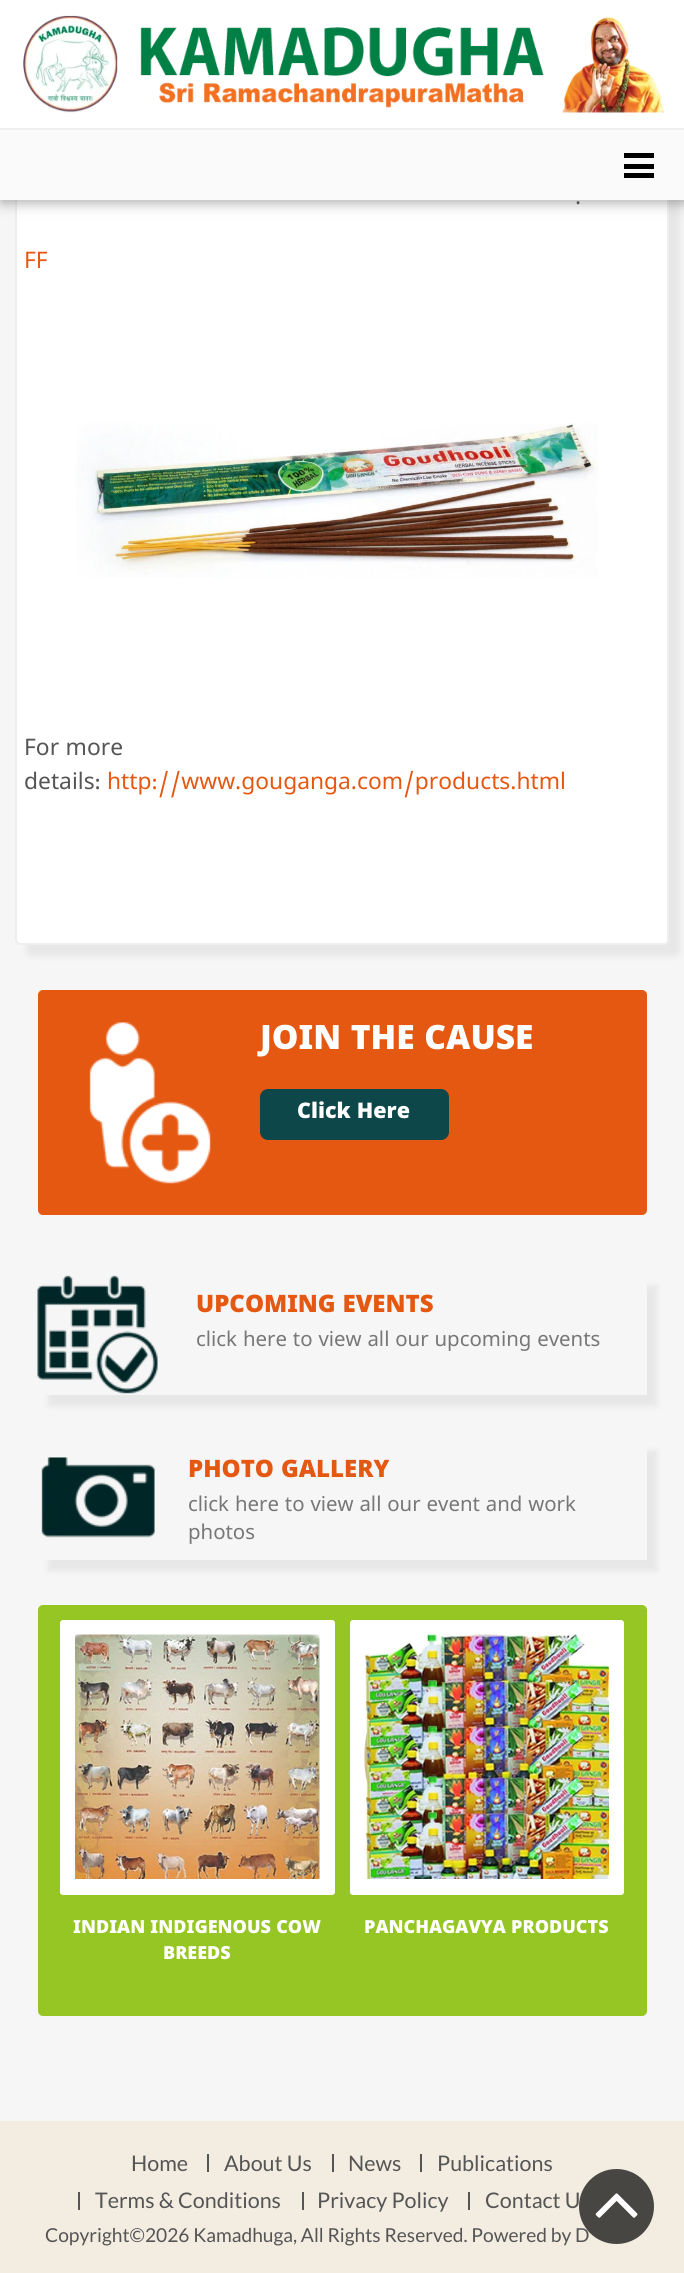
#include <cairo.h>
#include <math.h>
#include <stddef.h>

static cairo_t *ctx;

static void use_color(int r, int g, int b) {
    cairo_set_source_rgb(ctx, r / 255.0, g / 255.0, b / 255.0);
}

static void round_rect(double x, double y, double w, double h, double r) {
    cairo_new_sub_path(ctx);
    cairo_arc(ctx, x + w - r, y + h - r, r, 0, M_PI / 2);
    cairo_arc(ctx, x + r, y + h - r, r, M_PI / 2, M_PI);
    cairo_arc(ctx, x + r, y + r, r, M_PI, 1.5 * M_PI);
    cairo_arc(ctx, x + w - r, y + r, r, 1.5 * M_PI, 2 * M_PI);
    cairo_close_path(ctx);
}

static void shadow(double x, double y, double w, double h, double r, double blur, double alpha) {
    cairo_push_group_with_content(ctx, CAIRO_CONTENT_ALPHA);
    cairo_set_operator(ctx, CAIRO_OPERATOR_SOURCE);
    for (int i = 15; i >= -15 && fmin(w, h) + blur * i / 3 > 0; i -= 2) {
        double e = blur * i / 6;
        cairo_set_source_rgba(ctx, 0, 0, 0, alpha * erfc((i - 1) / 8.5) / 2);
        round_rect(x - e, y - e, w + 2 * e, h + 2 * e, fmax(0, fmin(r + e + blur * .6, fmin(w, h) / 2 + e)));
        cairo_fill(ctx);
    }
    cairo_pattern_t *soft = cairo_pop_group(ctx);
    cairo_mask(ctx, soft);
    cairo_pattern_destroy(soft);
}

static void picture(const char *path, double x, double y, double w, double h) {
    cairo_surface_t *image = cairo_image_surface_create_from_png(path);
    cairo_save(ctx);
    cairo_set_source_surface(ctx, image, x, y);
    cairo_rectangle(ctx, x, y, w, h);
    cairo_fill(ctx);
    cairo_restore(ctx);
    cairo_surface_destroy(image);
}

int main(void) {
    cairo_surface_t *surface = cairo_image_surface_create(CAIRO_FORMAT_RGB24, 684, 2273);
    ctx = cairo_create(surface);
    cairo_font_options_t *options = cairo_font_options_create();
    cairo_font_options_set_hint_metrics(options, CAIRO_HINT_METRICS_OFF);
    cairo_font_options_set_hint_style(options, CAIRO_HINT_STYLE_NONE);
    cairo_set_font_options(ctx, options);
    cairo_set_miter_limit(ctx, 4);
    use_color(246, 246, 246);
    cairo_paint(ctx);
    use_color(90, 90, 90);
    shadow(26, -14, 654, 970, 5, 3, 0.1);
    use_color(255, 255, 255);
    round_rect(16, -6, 652, 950, 4);
    cairo_fill_preserve(ctx);
    use_color(238, 238, 238);
    cairo_stroke(ctx);
    use_color(50, 50, 50);
    shadow(2, 2, 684, 199, 0, 7.5, 0.5);
    use_color(255, 255, 255);
    cairo_rectangle(ctx, 0, 0, 684, 128);
    cairo_fill(ctx);
    picture("img1.png", 23, 15, 642, 98);
    use_color(250, 250, 250);
    cairo_rectangle(ctx, 0, 130, 684, 70);
    cairo_fill(ctx);
    use_color(238, 238, 238);
    cairo_rectangle(ctx, 0, 128, 684, 2);
    cairo_fill(ctx);
    use_color(0, 0, 0);
    cairo_rectangle(ctx, 624, 153, 30, 5);
    cairo_fill(ctx);
    cairo_rectangle(ctx, 624, 164, 30, 5);
    cairo_fill(ctx);
    cairo_rectangle(ctx, 624, 173, 30, 5);
    cairo_fill(ctx);
    cairo_select_font_face(ctx, "Noto Sans Kannada", CAIRO_FONT_SLANT_NORMAL, CAIRO_FONT_WEIGHT_NORMAL);
    cairo_set_font_size(ctx, 22.8);
    use_color(85, 85, 85);
    cairo_move_to(ctx, 575, 204);
    cairo_show_text(ctx, ".");
    use_color(229, 88, 18);
    cairo_move_to(ctx, 24, 268);
    cairo_show_text(ctx, "FF");
    picture("img2.png", 76, 423, 522, 155);
    use_color(85, 85, 85);
    cairo_move_to(ctx, 24, 755);
    cairo_show_text(ctx, "For more");
    cairo_move_to(ctx, 24, 789);
    cairo_show_text(ctx, "details:");
    use_color(229, 88, 18);
    cairo_move_to(ctx, 107, 789);
    cairo_show_text(ctx, "http://www.gouganga.com/products.html");
    round_rect(38, 990, 609, 225, 5);
    cairo_fill(ctx);
    picture("img3.png", 89, 1022, 122, 162);
    cairo_select_font_face(ctx, "Noto Sans Kannada Black", CAIRO_FONT_SLANT_NORMAL, CAIRO_FONT_WEIGHT_NORMAL);
    cairo_set_font_size(ctx, 33.5);
    use_color(255, 255, 255);
    cairo_move_to(ctx, 260, 1049);
    cairo_show_text(ctx, "JOIN THE CAUSE");
    use_color(14, 71, 73);
    round_rect(260, 1089, 189, 51, 8);
    cairo_fill(ctx);
    cairo_set_font_size(ctx, 21.5);
    use_color(255, 255, 255);
    cairo_move_to(ctx, 297, 1118);
    cairo_show_text(ctx, "Click Here");
    cairo_save(ctx);
    cairo_set_fill_rule(ctx, CAIRO_FILL_RULE_EVEN_ODD);
    cairo_new_path(ctx);
    cairo_move_to(ctx, 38, 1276);
    cairo_line_to(ctx, 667, 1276);
    cairo_line_to(ctx, 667, 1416);
    cairo_line_to(ctx, 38, 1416);
    cairo_close_path(ctx);
    cairo_move_to(ctx, 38, 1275);
    cairo_line_to(ctx, 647, 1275);
    cairo_line_to(ctx, 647, 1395);
    cairo_line_to(ctx, 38, 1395);
    cairo_close_path(ctx);
    cairo_clip(ctx);
    use_color(90, 90, 90);
    shadow(48, 1286, 609, 120, 0, 3, 0.1);
    cairo_restore(ctx);
    picture("img4.png", 37, 1275, 121, 119);
    cairo_set_font_size(ctx, 24);
    use_color(229, 88, 18);
    cairo_move_to(ctx, 196, 1312);
    cairo_show_text(ctx, "UPCOMING EVENTS");
    cairo_select_font_face(ctx, "Noto Sans Kannada", CAIRO_FONT_SLANT_NORMAL, CAIRO_FONT_WEIGHT_NORMAL);
    cairo_set_font_size(ctx, 20.4);
    use_color(119, 119, 119);
    cairo_move_to(ctx, 196, 1346);
    cairo_show_text(ctx, "click here to view all our upcoming events");
    cairo_save(ctx);
    cairo_set_fill_rule(ctx, CAIRO_FILL_RULE_EVEN_ODD);
    cairo_new_path(ctx);
    cairo_move_to(ctx, 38, 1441);
    cairo_line_to(ctx, 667, 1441);
    cairo_line_to(ctx, 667, 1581);
    cairo_line_to(ctx, 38, 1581);
    cairo_close_path(ctx);
    cairo_move_to(ctx, 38, 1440);
    cairo_line_to(ctx, 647, 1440);
    cairo_line_to(ctx, 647, 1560);
    cairo_line_to(ctx, 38, 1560);
    cairo_close_path(ctx);
    cairo_clip(ctx);
    use_color(90, 90, 90);
    shadow(48, 1451, 609, 120, 0, 3, 0.1);
    cairo_restore(ctx);
    picture("img5.png", 41, 1457, 114, 81);
    cairo_select_font_face(ctx, "Noto Sans Kannada Black", CAIRO_FONT_SLANT_NORMAL, CAIRO_FONT_WEIGHT_NORMAL);
    cairo_set_font_size(ctx, 24);
    use_color(229, 88, 18);
    cairo_move_to(ctx, 188, 1477);
    cairo_show_text(ctx, "PHOTO GALLERY");
    cairo_select_font_face(ctx, "Noto Sans Kannada", CAIRO_FONT_SLANT_NORMAL, CAIRO_FONT_WEIGHT_NORMAL);
    cairo_set_font_size(ctx, 20.4);
    use_color(119, 119, 119);
    cairo_move_to(ctx, 188, 1511);
    cairo_show_text(ctx, "click here to view all our event and work");
    cairo_move_to(ctx, 188, 1539);
    cairo_show_text(ctx, "photos");
    use_color(149, 198, 35);
    round_rect(38, 1605, 609, 411, 5);
    cairo_fill(ctx);
    use_color(255, 255, 255);
    round_rect(60, 1620, 275, 275, 3);
    cairo_fill(ctx);
    picture("img6.png", 75, 1634, 245, 245);
    cairo_select_font_face(ctx, "Noto Sans Kannada Black", CAIRO_FONT_SLANT_NORMAL, CAIRO_FONT_WEIGHT_NORMAL);
    cairo_set_font_size(ctx, 18);
    cairo_move_to(ctx, 73, 1933);
    cairo_show_text(ctx, "INDIAN INDIGENOUS COW");
    cairo_move_to(ctx, 163, 1959);
    cairo_show_text(ctx, "BREEDS");
    round_rect(350, 1620, 274, 275, 3);
    cairo_fill(ctx);
    picture("img7.png", 364, 1634, 245, 245);
    cairo_move_to(ctx, 364, 1933);
    cairo_show_text(ctx, "PANCHAGAVYA PRODUCTS");
    use_color(242, 236, 225);
    cairo_rectangle(ctx, 0, 2121, 684, 152);
    cairo_fill(ctx);
    cairo_select_font_face(ctx, "Lato", CAIRO_FONT_SLANT_NORMAL, CAIRO_FONT_WEIGHT_NORMAL);
    cairo_set_font_size(ctx, 21.5);
    use_color(85, 85, 85);
    cairo_move_to(ctx, 131, 2171);
    cairo_show_text(ctx, "Home");
    cairo_rectangle(ctx, 207, 2154, 2, 18);
    cairo_fill(ctx);
    cairo_move_to(ctx, 224, 2171);
    cairo_show_text(ctx, "About Us");
    cairo_rectangle(ctx, 332, 2154, 2, 18);
    cairo_fill(ctx);
    cairo_move_to(ctx, 348, 2171);
    cairo_show_text(ctx, "News");
    cairo_rectangle(ctx, 420, 2154, 2, 18);
    cairo_fill(ctx);
    cairo_move_to(ctx, 437, 2171);
    cairo_show_text(ctx, "Publications");
    cairo_rectangle(ctx, 78, 2192, 2, 18);
    cairo_fill(ctx);
    cairo_move_to(ctx, 95, 2208);
    cairo_show_text(ctx, "Terms & Conditions");
    cairo_rectangle(ctx, 302, 2192, 2, 18);
    cairo_fill(ctx);
    cairo_move_to(ctx, 317, 2208);
    cairo_show_text(ctx, "Privacy Policy");
    cairo_rectangle(ctx, 468, 2192, 2, 18);
    cairo_fill(ctx);
    cairo_move_to(ctx, 485, 2208);
    cairo_show_text(ctx, "Contact U");
    cairo_set_font_size(ctx, 19.2);
    cairo_move_to(ctx, 45, 2242);
    cairo_show_text(ctx, "Copyright©2026 Kamadhuga, All Rights Reserved. Powered by D");
    cairo_set_source_rgba(ctx, 0, 0, 0, 0.7);
    cairo_new_path(ctx);
    cairo_arc(ctx, 616.5, 2206.5, 37.5, 0, 2 * M_PI);
    cairo_fill(ctx);
    picture("img8.png", 595, 2193, 43, 25);
    cairo_surface_write_to_png(surface, "result.png");
    cairo_font_options_destroy(options);
    cairo_destroy(ctx);
    cairo_surface_destroy(surface);
    return 0;
}
